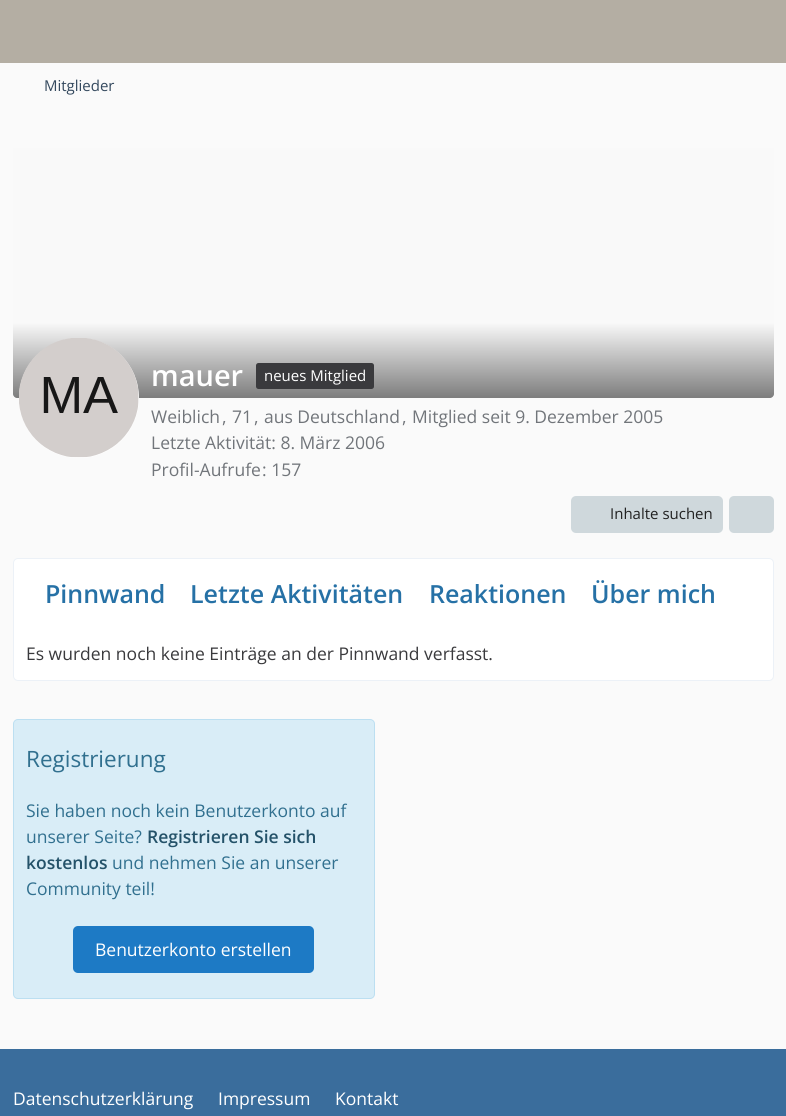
#include <cairo.h>
#include <math.h>
#include <stddef.h>

static cairo_t *ctx;

static void use_color(int r, int g, int b) {
    cairo_set_source_rgb(ctx, r / 255.0, g / 255.0, b / 255.0);
}

static void round_rect(double x, double y, double w, double h, double r) {
    cairo_new_sub_path(ctx);
    cairo_arc(ctx, x + w - r, y + h - r, r, 0, M_PI / 2);
    cairo_arc(ctx, x + r, y + h - r, r, M_PI / 2, M_PI);
    cairo_arc(ctx, x + r, y + r, r, M_PI, 1.5 * M_PI);
    cairo_arc(ctx, x + w - r, y + r, r, 1.5 * M_PI, 2 * M_PI);
    cairo_close_path(ctx);
}

static void picture(const char *path, double x, double y, double w, double h) {
    cairo_surface_t *image = cairo_image_surface_create_from_png(path);
    cairo_save(ctx);
    cairo_set_source_surface(ctx, image, x, y);
    cairo_rectangle(ctx, x, y, w, h);
    cairo_fill(ctx);
    cairo_restore(ctx);
    cairo_surface_destroy(image);
}

int main(void) {
    cairo_surface_t *surface = cairo_image_surface_create(CAIRO_FORMAT_RGB24, 786, 1116);
    ctx = cairo_create(surface);
    cairo_font_options_t *options = cairo_font_options_create();
    cairo_font_options_set_hint_metrics(options, CAIRO_HINT_METRICS_OFF);
    cairo_font_options_set_hint_style(options, CAIRO_HINT_STYLE_NONE);
    cairo_set_font_options(ctx, options);
    cairo_set_miter_limit(ctx, 4);
    cairo_pattern_t *gradient;
    use_color(250, 250, 250);
    cairo_paint(ctx);
    use_color(180, 174, 163);
    cairo_rectangle(ctx, 0, 0, 786, 63);
    cairo_fill(ctx);
    cairo_select_font_face(ctx, "Open Sans", CAIRO_FONT_SLANT_NORMAL, CAIRO_FONT_WEIGHT_NORMAL);
    cairo_set_font_size(ctx, 15);
    use_color(52, 73, 94);
    cairo_move_to(ctx, 44, 91);
    cairo_show_text(ctx, "Mitglieder");
    gradient = cairo_pattern_create_linear(393, 147, 393, 398);
    cairo_pattern_add_color_stop_rgba(gradient, 0.7, 0.976, 0.976, 0.976, 1);
    cairo_pattern_add_color_stop_rgba(gradient, 1, 0.49, 0.49, 0.49, 1);
    cairo_set_source(ctx, gradient);
    cairo_pattern_destroy(gradient);
    cairo_new_path(ctx);
    cairo_move_to(ctx, 13, 148);
    cairo_line_to(ctx, 774, 148);
    cairo_line_to(ctx, 774, 394);
    cairo_curve_to(ctx, 774, 396, 772, 398, 770, 398);
    cairo_line_to(ctx, 17, 398);
    cairo_curve_to(ctx, 15, 398, 13, 396, 13, 394);
    cairo_close_path(ctx);
    cairo_fill(ctx);
    use_color(255, 255, 255);
    cairo_arc(ctx, 79, 398, 60, 0, 2 * M_PI);
    cairo_fill(ctx);
    picture("img1.png", 19, 338, 120, 120);
    cairo_select_font_face(ctx, "Open Sans SemiBold", CAIRO_FONT_SLANT_NORMAL, CAIRO_FONT_WEIGHT_NORMAL);
    cairo_set_font_size(ctx, 29);
    cairo_move_to(ctx, 151, 386);
    cairo_show_text(ctx, "mauer");
    use_color(58, 58, 61);
    round_rect(256, 363, 118, 26, 2.5);
    cairo_fill(ctx);
    cairo_select_font_face(ctx, "Open Sans", CAIRO_FONT_SLANT_NORMAL, CAIRO_FONT_WEIGHT_NORMAL);
    cairo_set_font_size(ctx, 15);
    use_color(255, 255, 255);
    cairo_move_to(ctx, 264, 381);
    cairo_show_text(ctx, "neues Mitglied");
    cairo_set_font_size(ctx, 17.5);
    use_color(113, 117, 122);
    cairo_move_to(ctx, 151, 423);
    cairo_show_text(ctx, "Weiblich");
    cairo_move_to(ctx, 222, 423);
    cairo_show_text(ctx, ",");
    cairo_move_to(ctx, 232, 423);
    cairo_show_text(ctx, "71");
    cairo_move_to(ctx, 254, 423);
    cairo_show_text(ctx, ",");
    cairo_move_to(ctx, 264, 423);
    cairo_show_text(ctx, "aus Deutschland");
    cairo_move_to(ctx, 402, 423);
    cairo_show_text(ctx, ",");
    cairo_move_to(ctx, 412, 423);
    cairo_show_text(ctx, "Mitglied seit 9. Dezember 2005");
    cairo_move_to(ctx, 151, 449);
    cairo_show_text(ctx, "Letzte Aktivität: 8. März 2006");
    cairo_move_to(ctx, 151, 476);
    cairo_show_text(ctx, "Profil-Aufrufe");
    cairo_move_to(ctx, 262, 476);
    cairo_show_text(ctx, ": 157");
    use_color(207, 216, 220);
    round_rect(571, 496, 152, 37, 5);
    cairo_fill(ctx);
    cairo_set_font_size(ctx, 15);
    use_color(33, 33, 33);
    cairo_move_to(ctx, 610, 519);
    cairo_show_text(ctx, "Inhalte suchen");
    use_color(207, 216, 220);
    round_rect(729, 496, 45, 37, 5);
    cairo_fill(ctx);
    use_color(255, 255, 255);
    round_rect(13.5, 558.5, 760, 122, 4.5);
    cairo_fill_preserve(ctx);
    use_color(236, 241, 247);
    cairo_set_line_width(ctx, 1);
    cairo_stroke(ctx);
    cairo_select_font_face(ctx, "Open Sans SemiBold", CAIRO_FONT_SLANT_NORMAL, CAIRO_FONT_WEIGHT_NORMAL);
    cairo_set_font_size(ctx, 25);
    use_color(38, 113, 166);
    cairo_move_to(ctx, 45, 603);
    cairo_show_text(ctx, "Pinnwand");
    cairo_move_to(ctx, 190, 603);
    cairo_show_text(ctx, "Letzte Aktivitäten");
    cairo_move_to(ctx, 429, 603);
    cairo_show_text(ctx, "Reaktionen");
    cairo_move_to(ctx, 591, 603);
    cairo_show_text(ctx, "Über mich");
    cairo_select_font_face(ctx, "Open Sans", CAIRO_FONT_SLANT_NORMAL, CAIRO_FONT_WEIGHT_NORMAL);
    cairo_set_font_size(ctx, 17.5);
    use_color(58, 58, 61);
    cairo_move_to(ctx, 26, 660);
    cairo_show_text(ctx, "Es wurden noch keine Einträge an der Pinnwand verfasst.");
    use_color(217, 237, 247);
    round_rect(13.5, 719.5, 361, 279, 4.5);
    cairo_fill_preserve(ctx);
    use_color(188, 223, 241);
    cairo_stroke(ctx);
    cairo_set_font_size(ctx, 22.5);
    use_color(49, 112, 143);
    cairo_move_to(ctx, 26, 767);
    cairo_show_text(ctx, "Registrierung");
    cairo_set_font_size(ctx, 17.5);
    cairo_move_to(ctx, 26, 817);
    cairo_show_text(ctx, "Sie haben noch kein Benutzerkonto auf");
    cairo_move_to(ctx, 26, 843);
    cairo_show_text(ctx, "unserer Seite?");
    cairo_select_font_face(ctx, "Open Sans SemiBold", CAIRO_FONT_SLANT_NORMAL, CAIRO_FONT_WEIGHT_NORMAL);
    use_color(36, 82, 105);
    cairo_move_to(ctx, 147, 843);
    cairo_show_text(ctx, "Registrieren Sie sich");
    cairo_move_to(ctx, 26, 869);
    cairo_show_text(ctx, "kostenlos");
    cairo_select_font_face(ctx, "Open Sans", CAIRO_FONT_SLANT_NORMAL, CAIRO_FONT_WEIGHT_NORMAL);
    use_color(49, 112, 143);
    cairo_move_to(ctx, 112, 869);
    cairo_show_text(ctx, "und nehmen Sie an unserer");
    cairo_move_to(ctx, 26, 895);
    cairo_show_text(ctx, "Community teil!");
    use_color(29, 122, 197);
    round_rect(73, 926, 241, 47, 5);
    cairo_fill(ctx);
    use_color(255, 255, 255);
    cairo_move_to(ctx, 95, 956);
    cairo_show_text(ctx, "Benutzerkonto erstellen");
    use_color(58, 109, 156);
    cairo_rectangle(ctx, 0, 1049, 786, 67);
    cairo_fill(ctx);
    use_color(255, 255, 255);
    cairo_move_to(ctx, 13, 1105);
    cairo_show_text(ctx, "Datenschutzerklärung");
    cairo_move_to(ctx, 218, 1105);
    cairo_show_text(ctx, "Impressum");
    cairo_move_to(ctx, 335, 1105);
    cairo_show_text(ctx, "Kontakt");
    cairo_surface_write_to_png(surface, "result.png");
    cairo_font_options_destroy(options);
    cairo_destroy(ctx);
    cairo_surface_destroy(surface);
    return 0;
}
